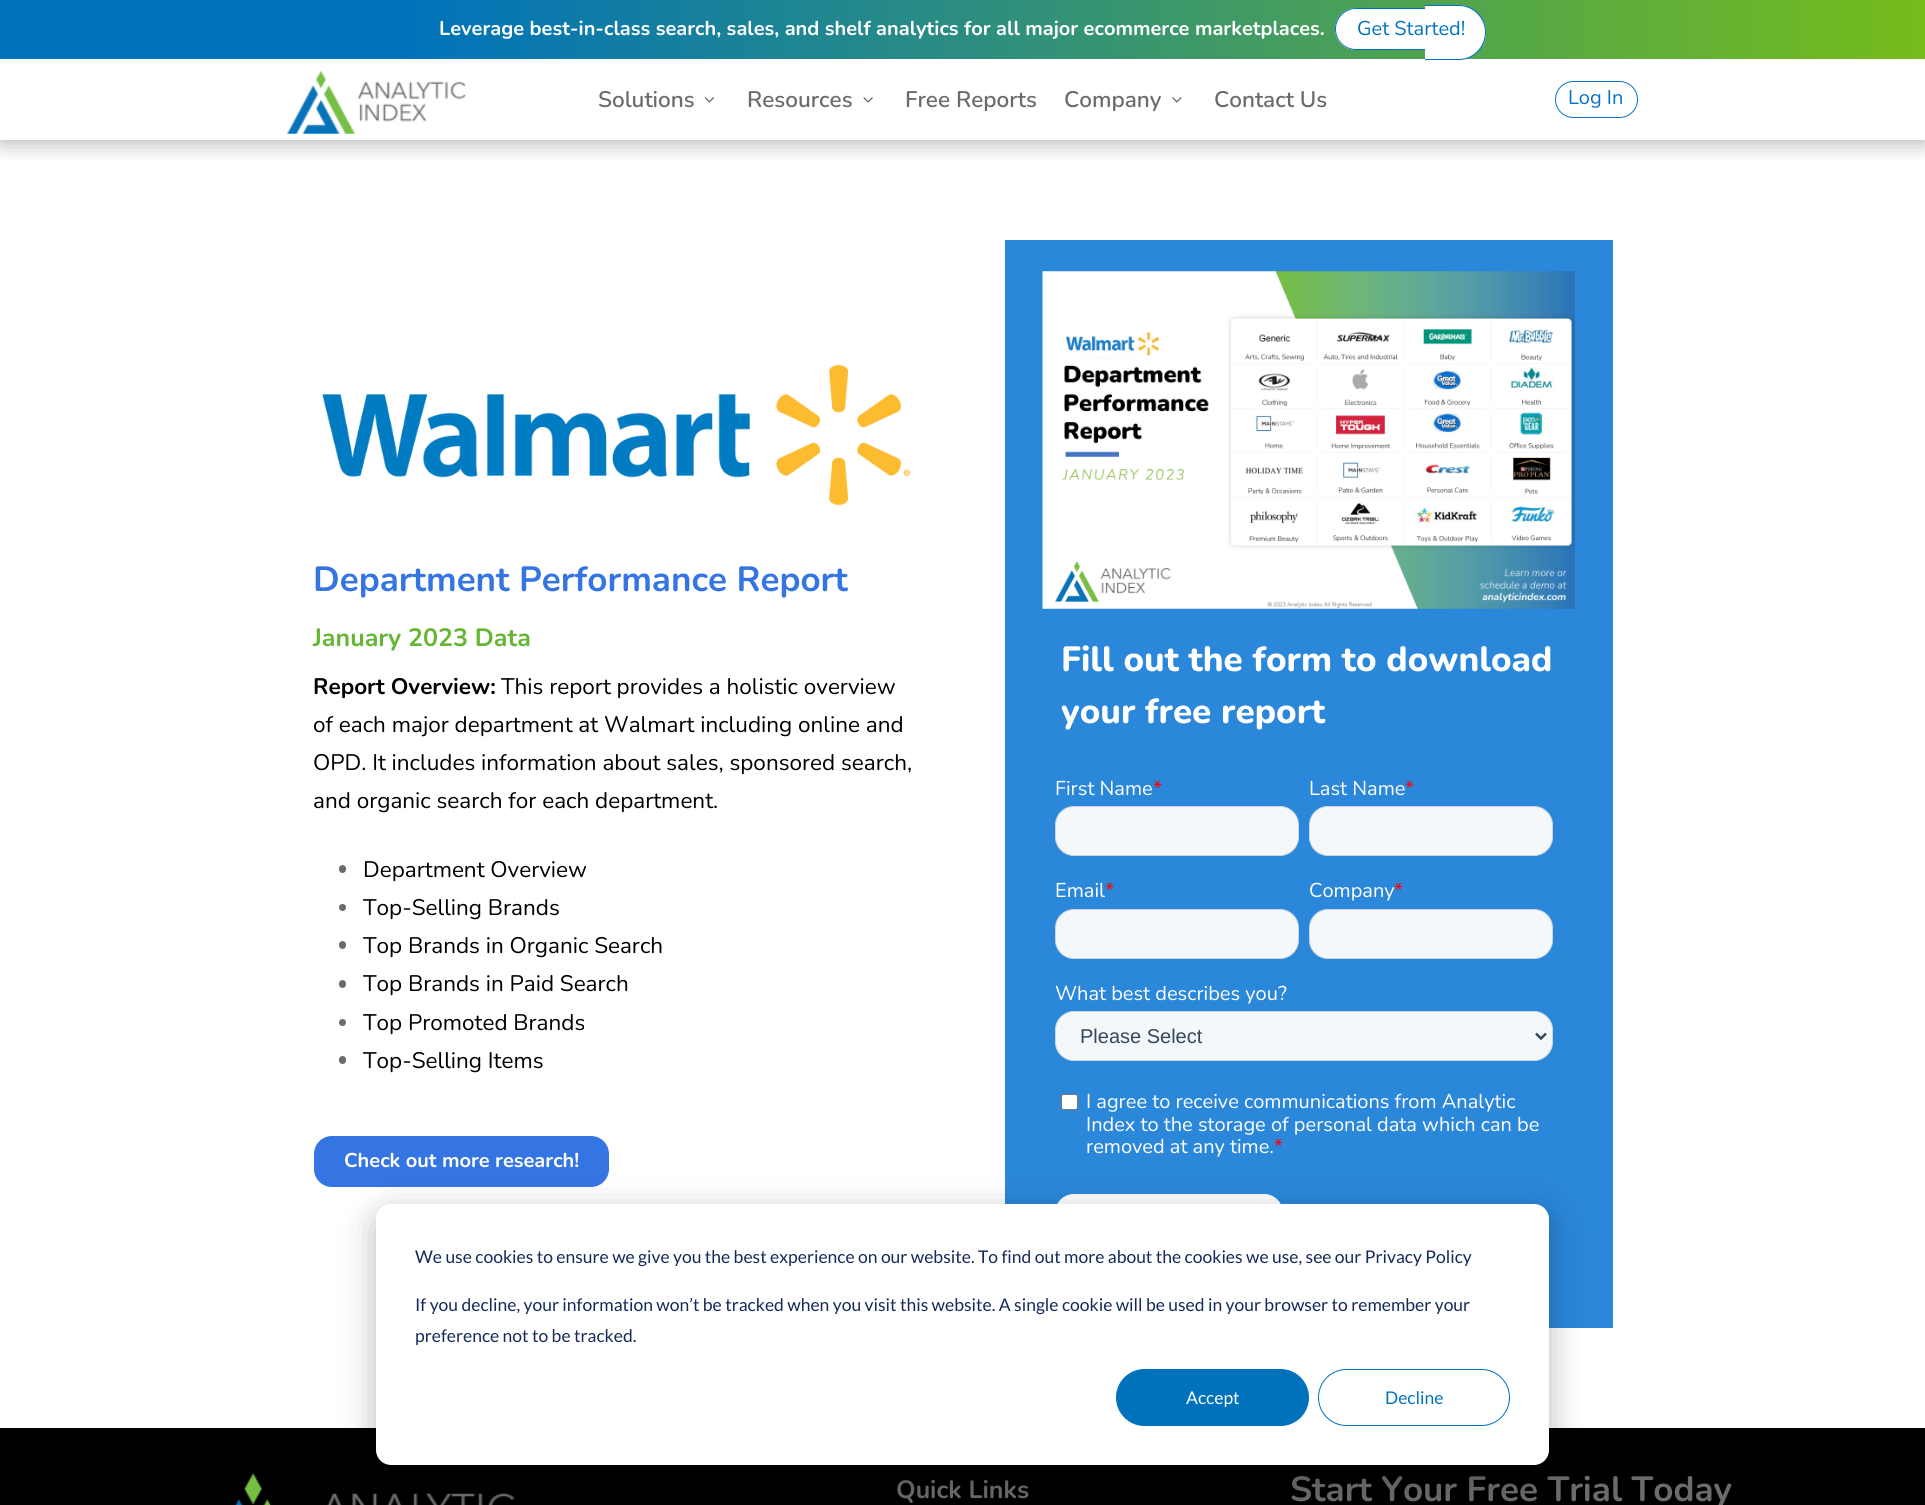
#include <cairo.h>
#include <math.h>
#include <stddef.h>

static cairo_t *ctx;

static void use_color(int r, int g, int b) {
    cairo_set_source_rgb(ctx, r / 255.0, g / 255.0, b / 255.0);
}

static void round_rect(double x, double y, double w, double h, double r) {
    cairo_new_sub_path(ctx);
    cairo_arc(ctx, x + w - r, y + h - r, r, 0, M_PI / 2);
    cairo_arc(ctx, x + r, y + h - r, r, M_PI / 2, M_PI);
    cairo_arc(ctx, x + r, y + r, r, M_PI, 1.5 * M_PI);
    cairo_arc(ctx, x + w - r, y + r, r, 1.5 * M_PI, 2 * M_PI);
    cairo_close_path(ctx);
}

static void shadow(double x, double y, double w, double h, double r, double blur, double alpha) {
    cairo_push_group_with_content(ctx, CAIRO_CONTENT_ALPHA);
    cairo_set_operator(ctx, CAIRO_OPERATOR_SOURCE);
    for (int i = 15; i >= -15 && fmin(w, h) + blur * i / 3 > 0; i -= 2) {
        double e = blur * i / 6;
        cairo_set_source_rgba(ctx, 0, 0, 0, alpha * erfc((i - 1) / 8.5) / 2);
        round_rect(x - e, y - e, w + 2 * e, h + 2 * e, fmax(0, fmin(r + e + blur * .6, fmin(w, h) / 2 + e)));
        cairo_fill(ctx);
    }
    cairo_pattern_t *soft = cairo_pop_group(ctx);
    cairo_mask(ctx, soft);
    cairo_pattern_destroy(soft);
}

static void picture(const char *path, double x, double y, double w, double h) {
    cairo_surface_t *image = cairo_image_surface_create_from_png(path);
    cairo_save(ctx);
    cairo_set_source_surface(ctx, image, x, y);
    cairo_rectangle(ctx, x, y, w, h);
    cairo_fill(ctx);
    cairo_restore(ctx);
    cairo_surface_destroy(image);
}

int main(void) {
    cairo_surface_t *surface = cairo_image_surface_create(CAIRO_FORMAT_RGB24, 1925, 1505);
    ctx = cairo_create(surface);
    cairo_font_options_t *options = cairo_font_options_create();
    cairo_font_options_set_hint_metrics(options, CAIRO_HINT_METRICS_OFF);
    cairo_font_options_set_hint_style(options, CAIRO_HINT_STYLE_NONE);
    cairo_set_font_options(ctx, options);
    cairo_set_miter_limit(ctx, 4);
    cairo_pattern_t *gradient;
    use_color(255, 255, 255);
    cairo_paint(ctx);
    cairo_save(ctx);
    cairo_rectangle(ctx, 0, 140, 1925, 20);
    cairo_clip(ctx);
    use_color(0, 0, 0);
    shadow(0, 3, 1925, 140, 0, 11, 0.3);
    cairo_restore(ctx);
    gradient = cairo_pattern_create_linear(0, 29, 1925, 29);
    cairo_pattern_add_color_stop_rgba(gradient, 0.21, 0, 0.447, 0.737, 1);
    cairo_pattern_add_color_stop_rgba(gradient, 1, 0.463, 0.737, 0.106, 1);
    cairo_set_source(ctx, gradient);
    cairo_pattern_destroy(gradient);
    cairo_rectangle(ctx, 0, 0, 1925, 59);
    cairo_fill(ctx);
    cairo_select_font_face(ctx, "Nunito", CAIRO_FONT_SLANT_NORMAL, CAIRO_FONT_WEIGHT_BOLD);
    cairo_set_font_size(ctx, 20);
    use_color(255, 255, 255);
    cairo_move_to(ctx, 439, 35);
    cairo_show_text(ctx, "Leverage best-in-class search, sales, and shelf analytics for all major ecommerce marketplaces.");
    cairo_new_path(ctx);
    cairo_move_to(ctx, 1356, 8);
    cairo_line_to(ctx, 1465, 8);
    cairo_line_to(ctx, 1465, 50);
    cairo_line_to(ctx, 1356, 50);
    cairo_curve_to(ctx, 1344.5, 50, 1335, 40.5, 1335, 29);
    cairo_curve_to(ctx, 1335, 17.5, 1344.5, 8, 1356, 8);
    cairo_close_path(ctx);
    cairo_fill(ctx);
    use_color(0, 114, 188);
    cairo_set_fill_rule(ctx, CAIRO_FILL_RULE_EVEN_ODD);
    cairo_new_path(ctx);
    cairo_move_to(ctx, 1356, 8);
    cairo_line_to(ctx, 1465, 8);
    cairo_line_to(ctx, 1465, 50);
    cairo_line_to(ctx, 1356, 50);
    cairo_curve_to(ctx, 1345, 50, 1335, 40, 1335, 29);
    cairo_curve_to(ctx, 1335, 17, 1345, 8, 1356, 8);
    cairo_close_path(ctx);
    cairo_move_to(ctx, 1356, 9);
    cairo_line_to(ctx, 1465, 9);
    cairo_line_to(ctx, 1465, 49);
    cairo_line_to(ctx, 1356, 49);
    cairo_curve_to(ctx, 1345, 49, 1336, 40, 1336, 29);
    cairo_curve_to(ctx, 1336, 18, 1345, 9, 1356, 9);
    cairo_close_path(ctx);
    cairo_fill(ctx);
    use_color(255, 255, 255);
    cairo_new_path(ctx);
    cairo_move_to(ctx, 1425, 5);
    cairo_line_to(ctx, 1458.5, 5);
    cairo_curve_to(ctx, 1473.5, 5, 1486, 17.5, 1486, 32.5);
    cairo_curve_to(ctx, 1486, 47.5, 1473.5, 60, 1458.5, 60);
    cairo_line_to(ctx, 1425, 60);
    cairo_close_path(ctx);
    cairo_fill(ctx);
    use_color(0, 114, 188);
    cairo_new_path(ctx);
    cairo_move_to(ctx, 1425, 5);
    cairo_line_to(ctx, 1459, 5);
    cairo_curve_to(ctx, 1474, 5, 1486, 17, 1486, 32);
    cairo_curve_to(ctx, 1486, 48, 1474, 60, 1459, 60);
    cairo_line_to(ctx, 1425, 60);
    cairo_close_path(ctx);
    cairo_move_to(ctx, 1425, 6);
    cairo_line_to(ctx, 1459, 6);
    cairo_curve_to(ctx, 1473, 6, 1485, 18, 1485, 32);
    cairo_curve_to(ctx, 1485, 47, 1473, 59, 1459, 59);
    cairo_line_to(ctx, 1425, 59);
    cairo_close_path(ctx);
    cairo_fill(ctx);
    cairo_select_font_face(ctx, "Nunito", CAIRO_FONT_SLANT_NORMAL, CAIRO_FONT_WEIGHT_NORMAL);
    cairo_move_to(ctx, 1357, 35);
    cairo_show_text(ctx, "Get Started!");
    picture("img1.png", 287, 71, 180, 63);
    cairo_select_font_face(ctx, "Nunito SemiBold", CAIRO_FONT_SLANT_NORMAL, CAIRO_FONT_WEIGHT_NORMAL);
    cairo_set_font_size(ctx, 22.5);
    use_color(107, 107, 107);
    cairo_move_to(ctx, 598, 107);
    cairo_show_text(ctx, "Solutions");
    picture("img2.png", 704, 97, 10, 6);
    cairo_move_to(ctx, 747, 107);
    cairo_show_text(ctx, "Resources");
    picture("img3.png", 863, 97, 10, 6);
    cairo_move_to(ctx, 905, 107);
    cairo_show_text(ctx, "Free Reports");
    cairo_move_to(ctx, 1064, 107);
    cairo_show_text(ctx, "Company");
    picture("img4.png", 1172, 97, 10, 6);
    cairo_move_to(ctx, 1214, 107);
    cairo_show_text(ctx, "Contact Us");
    round_rect(1555.5, 81.5, 82, 36, 18);
    use_color(12, 113, 195);
    cairo_set_line_width(ctx, 1);
    cairo_stroke(ctx);
    cairo_select_font_face(ctx, "Nunito", CAIRO_FONT_SLANT_NORMAL, CAIRO_FONT_WEIGHT_NORMAL);
    cairo_set_font_size(ctx, 20);
    cairo_move_to(ctx, 1568, 104);
    cairo_show_text(ctx, "Log In");
    picture("img5.png", 322, 364, 589, 142);
    cairo_select_font_face(ctx, "Nunito", CAIRO_FONT_SLANT_NORMAL, CAIRO_FONT_WEIGHT_BOLD);
    cairo_set_font_size(ctx, 35);
    use_color(53, 116, 227);
    cairo_move_to(ctx, 313, 591);
    cairo_show_text(ctx, "Department Performance Report");
    cairo_set_font_size(ctx, 25);
    use_color(102, 181, 52);
    cairo_move_to(ctx, 313, 646);
    cairo_show_text(ctx, "January 2023 Data");
    cairo_set_font_size(ctx, 22.5);
    use_color(0, 0, 0);
    cairo_move_to(ctx, 313, 694);
    cairo_show_text(ctx, "Report Overview:");
    cairo_select_font_face(ctx, "Nunito", CAIRO_FONT_SLANT_NORMAL, CAIRO_FONT_WEIGHT_NORMAL);
    cairo_move_to(ctx, 501, 694);
    cairo_show_text(ctx, "This report provides a holistic overview");
    cairo_move_to(ctx, 313, 732);
    cairo_show_text(ctx, "of each major department at Walmart including online and");
    cairo_move_to(ctx, 313, 770);
    cairo_show_text(ctx, "OPD. It includes information about sales, sponsored search,");
    cairo_move_to(ctx, 313, 808);
    cairo_show_text(ctx, "and organic search for each department.");
    use_color(107, 107, 107);
    round_rect(339, 865, 7, 8, 3.5);
    cairo_fill(ctx);
    use_color(0, 0, 0);
    cairo_move_to(ctx, 363, 877);
    cairo_show_text(ctx, "Department Overview");
    use_color(107, 107, 107);
    cairo_new_path(ctx);
    cairo_arc(ctx, 342.5, 907.5, 3.5, 0, 2 * M_PI);
    cairo_fill(ctx);
    use_color(0, 0, 0);
    cairo_move_to(ctx, 363, 915);
    cairo_show_text(ctx, "Top-Selling Brands");
    use_color(107, 107, 107);
    round_rect(339, 941, 7, 8, 3.5);
    cairo_fill(ctx);
    use_color(0, 0, 0);
    cairo_move_to(ctx, 363, 953);
    cairo_show_text(ctx, "Top Brands in Organic Search");
    use_color(107, 107, 107);
    round_rect(339, 980, 7, 8, 3.5);
    cairo_fill(ctx);
    use_color(0, 0, 0);
    cairo_move_to(ctx, 363, 991);
    cairo_show_text(ctx, "Top Brands in Paid Search");
    use_color(107, 107, 107);
    cairo_new_path(ctx);
    cairo_arc(ctx, 342.5, 1022.5, 3.5, 0, 2 * M_PI);
    cairo_fill(ctx);
    use_color(0, 0, 0);
    cairo_move_to(ctx, 363, 1030);
    cairo_show_text(ctx, "Top Promoted Brands");
    use_color(107, 107, 107);
    round_rect(339, 1056, 7, 8, 3.5);
    cairo_fill(ctx);
    use_color(0, 0, 0);
    cairo_move_to(ctx, 363, 1068);
    cairo_show_text(ctx, "Top-Selling Items");
    use_color(53, 116, 227);
    round_rect(313.5, 1135.5, 296, 52, 18.5);
    cairo_fill_preserve(ctx);
    use_color(255, 255, 255);
    cairo_stroke(ctx);
    cairo_select_font_face(ctx, "Nunito", CAIRO_FONT_SLANT_NORMAL, CAIRO_FONT_WEIGHT_BOLD);
    cairo_set_font_size(ctx, 20);
    cairo_move_to(ctx, 344, 1167);
    cairo_show_text(ctx, "Check out more research!");
    use_color(43, 135, 218);
    cairo_rectangle(ctx, 1005, 240, 608, 1088);
    cairo_fill(ctx);
    picture("img6.png", 1042, 271, 533, 338);
    cairo_select_font_face(ctx, "Nunito ExtraBold", CAIRO_FONT_SLANT_NORMAL, CAIRO_FONT_WEIGHT_NORMAL);
    cairo_set_font_size(ctx, 35);
    use_color(255, 255, 255);
    cairo_move_to(ctx, 1061, 671);
    cairo_show_text(ctx, "Fill out the form to download");
    cairo_move_to(ctx, 1061, 723);
    cairo_show_text(ctx, "your free report");
    cairo_select_font_face(ctx, "Nunito", CAIRO_FONT_SLANT_NORMAL, CAIRO_FONT_WEIGHT_NORMAL);
    cairo_set_font_size(ctx, 20);
    cairo_move_to(ctx, 1055, 795);
    cairo_show_text(ctx, "First Name");
    use_color(255, 0, 0);
    cairo_move_to(ctx, 1153, 795);
    cairo_show_text(ctx, "*");
    use_color(245, 248, 250);
    round_rect(1055.5, 806.5, 243, 49, 18.5);
    cairo_fill_preserve(ctx);
    use_color(203, 214, 226);
    cairo_stroke(ctx);
    use_color(255, 255, 255);
    cairo_move_to(ctx, 1309, 795);
    cairo_show_text(ctx, "Last Name");
    use_color(255, 0, 0);
    cairo_move_to(ctx, 1405, 795);
    cairo_show_text(ctx, "*");
    use_color(245, 248, 250);
    round_rect(1309.5, 806.5, 243, 49, 18.5);
    cairo_fill_preserve(ctx);
    use_color(203, 214, 226);
    cairo_stroke(ctx);
    use_color(255, 255, 255);
    cairo_move_to(ctx, 1055, 897);
    cairo_show_text(ctx, "Email");
    use_color(255, 0, 0);
    cairo_move_to(ctx, 1105, 897);
    cairo_show_text(ctx, "*");
    use_color(245, 248, 250);
    round_rect(1055.5, 909.5, 243, 49, 18.5);
    cairo_fill_preserve(ctx);
    use_color(203, 214, 226);
    cairo_stroke(ctx);
    use_color(255, 255, 255);
    cairo_move_to(ctx, 1309, 897);
    cairo_show_text(ctx, "Company");
    use_color(255, 0, 0);
    cairo_move_to(ctx, 1394, 897);
    cairo_show_text(ctx, "*");
    use_color(245, 248, 250);
    round_rect(1309.5, 909.5, 243, 49, 18.5);
    cairo_fill_preserve(ctx);
    use_color(203, 214, 226);
    cairo_stroke(ctx);
    use_color(255, 255, 255);
    cairo_move_to(ctx, 1055, 1000);
    cairo_show_text(ctx, "What best describes you?");
    use_color(245, 248, 250);
    round_rect(1055.5, 1011.5, 497, 49, 18.5);
    cairo_fill_preserve(ctx);
    use_color(203, 214, 226);
    cairo_stroke(ctx);
    cairo_new_path(ctx);
    cairo_move_to(ctx, 1536, 1033.5);
    cairo_line_to(ctx, 1541, 1038.5);
    cairo_line_to(ctx, 1546, 1033.5);
    use_color(51, 71, 91);
    cairo_set_line_width(ctx, 2.5);
    cairo_stroke(ctx);
    cairo_select_font_face(ctx, "Liberation Sans", CAIRO_FONT_SLANT_NORMAL, CAIRO_FONT_WEIGHT_NORMAL);
    cairo_move_to(ctx, 1080, 1043);
    cairo_show_text(ctx, "Please Select");
    use_color(255, 255, 255);
    round_rect(1061.5, 1094.5, 16, 15, 2);
    cairo_fill_preserve(ctx);
    use_color(118, 118, 118);
    cairo_set_line_width(ctx, 1);
    cairo_stroke(ctx);
    cairo_select_font_face(ctx, "Nunito", CAIRO_FONT_SLANT_NORMAL, CAIRO_FONT_WEIGHT_NORMAL);
    use_color(255, 255, 255);
    cairo_move_to(ctx, 1086, 1108);
    cairo_show_text(ctx, "I agree to receive communications from Analytic");
    cairo_move_to(ctx, 1086, 1131);
    cairo_show_text(ctx, "Index to the storage of personal data which can be");
    cairo_move_to(ctx, 1086, 1153);
    cairo_show_text(ctx, "removed at any time.");
    use_color(255, 0, 0);
    cairo_move_to(ctx, 1274, 1153);
    cairo_show_text(ctx, "*");
    use_color(255, 255, 255);
    round_rect(1055.5, 1194.5, 227, 51, 18.5);
    cairo_fill_preserve(ctx);
    cairo_stroke(ctx);
    use_color(0, 0, 0);
    cairo_rectangle(ctx, 0, 1428, 1925, 77);
    cairo_fill(ctx);
    picture("img7.png", 235, 1473, 280, 32);
    cairo_select_font_face(ctx, "Nunito", CAIRO_FONT_SLANT_NORMAL, CAIRO_FONT_WEIGHT_BOLD);
    cairo_set_font_size(ctx, 25);
    use_color(107, 107, 107);
    cairo_move_to(ctx, 896, 1498);
    cairo_show_text(ctx, "Quick Links");
    cairo_set_font_size(ctx, 35);
    cairo_move_to(ctx, 1290, 1501);
    cairo_show_text(ctx, "Start Your Free Trial Today");
    use_color(0, 0, 0);
    shadow(376, 1214, 1173, 261, 15, 17.5, 0.28);
    use_color(255, 255, 255);
    round_rect(376, 1204, 1173, 261, 15);
    cairo_fill(ctx);
    cairo_select_font_face(ctx, "Lato", CAIRO_FONT_SLANT_NORMAL, CAIRO_FONT_WEIGHT_NORMAL);
    cairo_set_font_size(ctx, 17.5);
    use_color(21, 41, 90);
    cairo_move_to(ctx, 415, 1263);
    cairo_show_text(ctx, "We use cookies to ensure we give you the best experience on our website. To find out more about the cookies we use, see our Privacy Policy");
    cairo_move_to(ctx, 415, 1311);
    cairo_show_text(ctx, "If you decline, your information won’t be tracked when you visit this website. A single cookie will be used in your browser to remember your");
    cairo_move_to(ctx, 415, 1342);
    cairo_show_text(ctx, "preference not to be tracked.");
    use_color(0, 114, 188);
    round_rect(1116.5, 1369.5, 192, 56, 28);
    cairo_fill_preserve(ctx);
    cairo_stroke(ctx);
    use_color(255, 255, 255);
    cairo_move_to(ctx, 1186, 1404);
    cairo_show_text(ctx, "Accept");
    round_rect(1318.5, 1369.5, 191, 56, 28);
    use_color(0, 114, 188);
    cairo_stroke(ctx);
    cairo_move_to(ctx, 1385, 1404);
    cairo_show_text(ctx, "Decline");
    cairo_surface_write_to_png(surface, "result.png");
    cairo_font_options_destroy(options);
    cairo_destroy(ctx);
    cairo_surface_destroy(surface);
    return 0;
}
